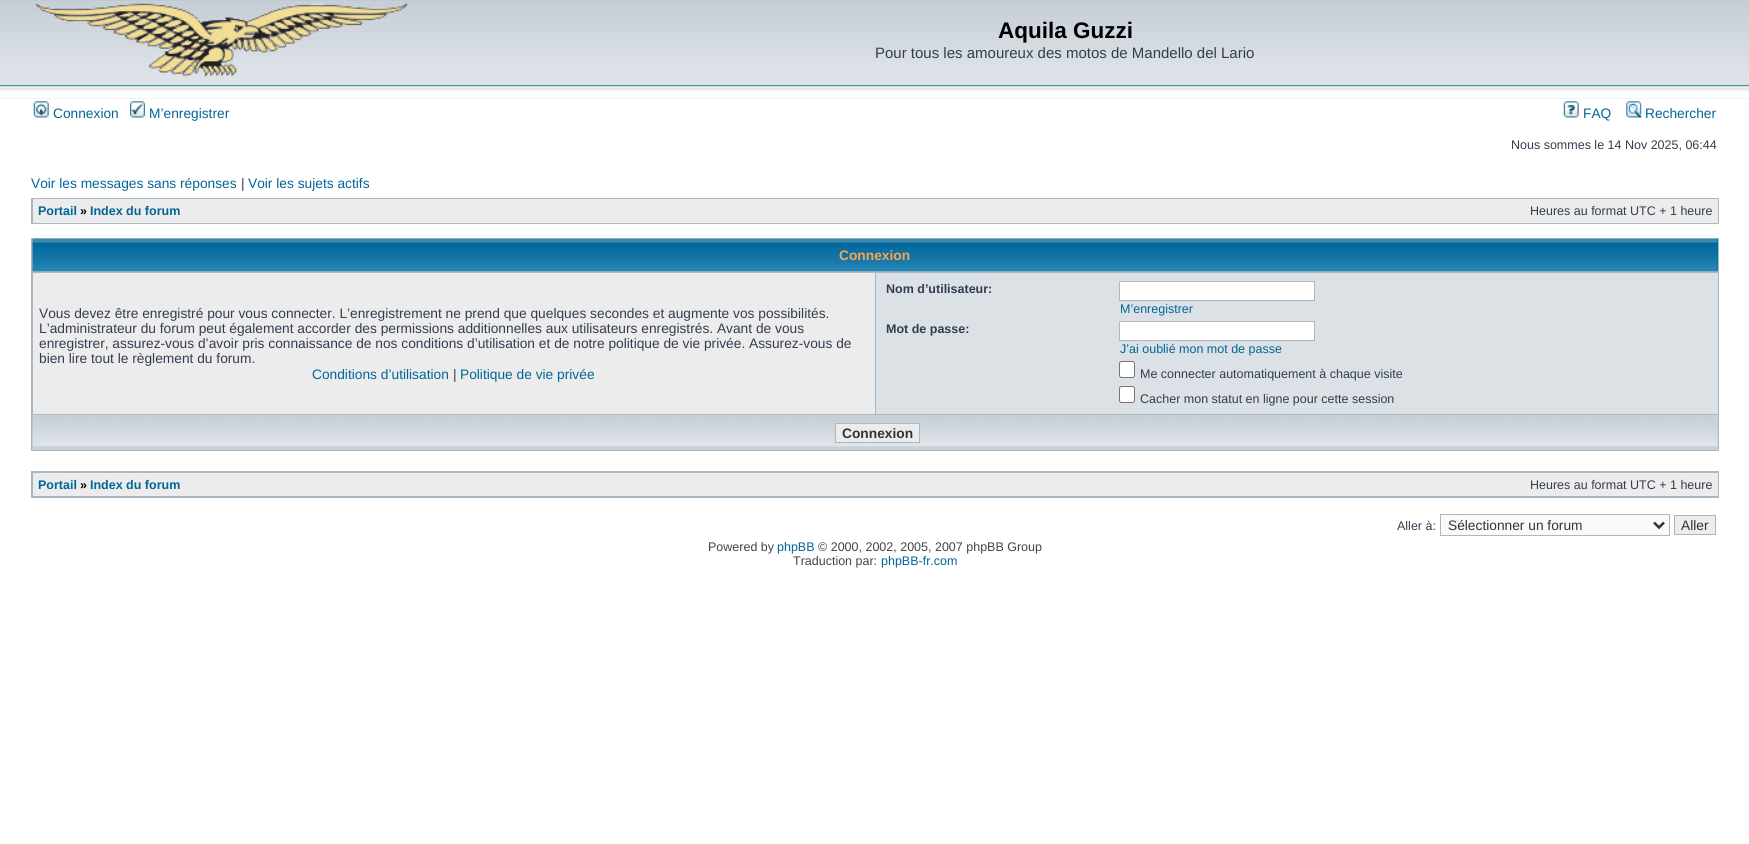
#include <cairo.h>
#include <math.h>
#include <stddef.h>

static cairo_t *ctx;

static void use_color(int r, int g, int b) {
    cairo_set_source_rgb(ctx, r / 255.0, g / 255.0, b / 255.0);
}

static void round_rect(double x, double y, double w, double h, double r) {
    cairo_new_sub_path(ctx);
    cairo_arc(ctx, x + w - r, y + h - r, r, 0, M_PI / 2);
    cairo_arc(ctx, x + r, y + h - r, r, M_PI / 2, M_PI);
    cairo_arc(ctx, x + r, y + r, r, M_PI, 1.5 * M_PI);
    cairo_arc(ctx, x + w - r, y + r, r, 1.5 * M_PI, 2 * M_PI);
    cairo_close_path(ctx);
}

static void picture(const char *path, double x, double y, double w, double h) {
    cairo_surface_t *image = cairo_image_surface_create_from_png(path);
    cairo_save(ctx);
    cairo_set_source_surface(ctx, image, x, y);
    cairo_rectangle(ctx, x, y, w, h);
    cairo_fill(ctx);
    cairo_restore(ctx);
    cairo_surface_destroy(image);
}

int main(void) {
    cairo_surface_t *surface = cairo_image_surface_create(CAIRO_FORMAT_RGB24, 1749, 844);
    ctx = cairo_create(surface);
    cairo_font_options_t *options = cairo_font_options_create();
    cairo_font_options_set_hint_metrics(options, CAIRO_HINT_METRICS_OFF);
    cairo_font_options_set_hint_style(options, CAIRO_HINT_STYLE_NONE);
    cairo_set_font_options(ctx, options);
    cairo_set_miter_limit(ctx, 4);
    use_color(255, 255, 255);
    cairo_paint(ctx);
    use_color(193, 202, 210);
    cairo_rectangle(ctx, 0, 0, 1749, 99);
    cairo_fill(ctx);
    picture("img1.png", 0, 1, 1749, 98);
    picture("img2.png", 36, 3, 372, 74);
    cairo_select_font_face(ctx, "Liberation Sans", CAIRO_FONT_SLANT_NORMAL, CAIRO_FONT_WEIGHT_BOLD);
    cairo_set_font_size(ctx, 22.5);
    use_color(0, 0, 0);
    cairo_move_to(ctx, 998, 38);
    cairo_show_text(ctx, "Aquila Guzzi");
    cairo_select_font_face(ctx, "Liberation Sans", CAIRO_FONT_SLANT_NORMAL, CAIRO_FONT_WEIGHT_NORMAL);
    cairo_set_font_size(ctx, 15);
    use_color(50, 61, 79);
    cairo_move_to(ctx, 875, 58);
    cairo_show_text(ctx, "Pour tous les amoureux des motos de Mandello del Lario");
    picture("img3.png", 33, 101, 16, 17);
    cairo_set_font_size(ctx, 13.75);
    use_color(0, 101, 151);
    cairo_move_to(ctx, 53, 118);
    cairo_show_text(ctx, "Connexion");
    picture("img4.png", 130, 101, 15, 17);
    cairo_move_to(ctx, 149, 118);
    cairo_show_text(ctx, "M’enregistrer");
    picture("img5.png", 1563, 101, 16, 17);
    cairo_move_to(ctx, 1583, 118);
    cairo_show_text(ctx, "FAQ");
    picture("img6.png", 1626, 101, 16, 17);
    cairo_move_to(ctx, 1645, 118);
    cairo_show_text(ctx, "Rechercher");
    cairo_set_font_size(ctx, 12.5);
    use_color(50, 61, 79);
    cairo_move_to(ctx, 1511, 149);
    cairo_show_text(ctx, "Nous sommes le 14 Nov 2025, 06:44");
    cairo_set_font_size(ctx, 13.75);
    use_color(0, 101, 151);
    cairo_move_to(ctx, 31, 188);
    cairo_show_text(ctx, "Voir les messages sans réponses");
    use_color(50, 61, 79);
    cairo_move_to(ctx, 241, 188);
    cairo_show_text(ctx, "|");
    use_color(0, 101, 151);
    cairo_move_to(ctx, 248, 188);
    cairo_show_text(ctx, "Voir les sujets actifs");
    use_color(169, 184, 194);
    cairo_rectangle(ctx, 31, 198, 1688, 26);
    cairo_fill(ctx);
    use_color(236, 236, 236);
    cairo_rectangle(ctx, 33, 199, 1685, 24);
    cairo_fill(ctx);
    cairo_select_font_face(ctx, "Liberation Sans", CAIRO_FONT_SLANT_NORMAL, CAIRO_FONT_WEIGHT_BOLD);
    cairo_set_font_size(ctx, 12.5);
    use_color(0, 101, 151);
    cairo_move_to(ctx, 38, 215);
    cairo_show_text(ctx, "Portail");
    use_color(0, 0, 0);
    cairo_move_to(ctx, 80, 215);
    cairo_show_text(ctx, "»");
    use_color(0, 101, 151);
    cairo_move_to(ctx, 90, 215);
    cairo_show_text(ctx, "Index du forum");
    cairo_select_font_face(ctx, "Liberation Sans", CAIRO_FONT_SLANT_NORMAL, CAIRO_FONT_WEIGHT_NORMAL);
    use_color(50, 61, 79);
    cairo_move_to(ctx, 1530, 215);
    cairo_show_text(ctx, "Heures au format UTC + 1 heure");
    use_color(169, 184, 194);
    cairo_rectangle(ctx, 31, 238, 1688, 213);
    cairo_fill(ctx);
    use_color(0, 102, 153);
    cairo_rectangle(ctx, 1717, 239, 1, 32);
    cairo_fill(ctx);
    picture("img7.png", 32, 238, 1686, 34);
    cairo_select_font_face(ctx, "Liberation Sans", CAIRO_FONT_SLANT_NORMAL, CAIRO_FONT_WEIGHT_BOLD);
    cairo_set_font_size(ctx, 13.75);
    use_color(255, 163, 79);
    cairo_move_to(ctx, 839, 260);
    cairo_show_text(ctx, "Connexion");
    use_color(236, 236, 236);
    cairo_rectangle(ctx, 33, 273, 842, 141);
    cairo_fill(ctx);
    cairo_select_font_face(ctx, "Liberation Sans", CAIRO_FONT_SLANT_NORMAL, CAIRO_FONT_WEIGHT_NORMAL);
    use_color(50, 61, 79);
    cairo_move_to(ctx, 39, 318);
    cairo_show_text(ctx, "Vous devez être enregistré pour vous connecter. L’enregistrement ne prend que quelques secondes et augmente vos possibilités.");
    cairo_move_to(ctx, 39, 333);
    cairo_show_text(ctx, "L’administrateur du forum peut également accorder des permissions additionnelles aux utilisateurs enregistrés. Avant de vous");
    cairo_move_to(ctx, 39, 348);
    cairo_show_text(ctx, "enregistrer, assurez-vous d’avoir pris connaissance de nos conditions d’utilisation et de notre politique de vie privée. Assurez-vous de");
    cairo_move_to(ctx, 39, 363);
    cairo_show_text(ctx, "bien lire tout le règlement du forum.");
    use_color(0, 101, 151);
    cairo_move_to(ctx, 312, 379);
    cairo_show_text(ctx, "Conditions d’utilisation");
    use_color(50, 61, 79);
    cairo_move_to(ctx, 453, 379);
    cairo_show_text(ctx, "|");
    use_color(0, 101, 151);
    cairo_move_to(ctx, 460, 379);
    cairo_show_text(ctx, "Politique de vie privée");
    use_color(220, 225, 229);
    cairo_rectangle(ctx, 876, 273, 842, 141);
    cairo_fill(ctx);
    cairo_select_font_face(ctx, "Liberation Sans", CAIRO_FONT_SLANT_NORMAL, CAIRO_FONT_WEIGHT_BOLD);
    cairo_set_font_size(ctx, 12.5);
    use_color(50, 61, 79);
    cairo_move_to(ctx, 886, 293);
    cairo_show_text(ctx, "Nom d’utilisateur:");
    use_color(255, 255, 255);
    cairo_rectangle(ctx, 1119.5, 281.5, 195, 19);
    cairo_fill_preserve(ctx);
    use_color(169, 184, 194);
    cairo_set_line_width(ctx, 1);
    cairo_stroke(ctx);
    cairo_select_font_face(ctx, "Liberation Sans", CAIRO_FONT_SLANT_NORMAL, CAIRO_FONT_WEIGHT_NORMAL);
    use_color(0, 101, 151);
    cairo_move_to(ctx, 1120, 313);
    cairo_show_text(ctx, "M’enregistrer");
    cairo_select_font_face(ctx, "Liberation Sans", CAIRO_FONT_SLANT_NORMAL, CAIRO_FONT_WEIGHT_BOLD);
    use_color(50, 61, 79);
    cairo_move_to(ctx, 886, 333);
    cairo_show_text(ctx, "Mot de passe:");
    use_color(255, 255, 255);
    cairo_rectangle(ctx, 1119.5, 321.5, 195, 19);
    cairo_fill_preserve(ctx);
    use_color(169, 184, 194);
    cairo_stroke(ctx);
    cairo_select_font_face(ctx, "Liberation Sans", CAIRO_FONT_SLANT_NORMAL, CAIRO_FONT_WEIGHT_NORMAL);
    use_color(0, 101, 151);
    cairo_move_to(ctx, 1120, 353);
    cairo_show_text(ctx, "J’ai oublié mon mot de passe");
    use_color(255, 255, 255);
    round_rect(1119.5, 361.5, 15, 16, 2);
    cairo_fill_preserve(ctx);
    use_color(118, 118, 118);
    cairo_stroke(ctx);
    use_color(50, 61, 79);
    cairo_move_to(ctx, 1140, 378);
    cairo_show_text(ctx, "Me connecter automatiquement à chaque visite");
    use_color(255, 255, 255);
    round_rect(1119.5, 386.5, 15, 16, 2);
    cairo_fill_preserve(ctx);
    use_color(118, 118, 118);
    cairo_stroke(ctx);
    use_color(50, 61, 79);
    cairo_move_to(ctx, 1140, 403);
    cairo_show_text(ctx, "Cacher mon statut en ligne pour cette session");
    use_color(199, 208, 215);
    cairo_rectangle(ctx, 1717, 415, 1, 35);
    cairo_fill(ctx);
    picture("img8.png", 32, 415, 1686, 35);
    use_color(236, 236, 236);
    cairo_rectangle(ctx, 835.5, 423.5, 84, 19);
    cairo_fill_preserve(ctx);
    use_color(169, 184, 194);
    cairo_stroke(ctx);
    cairo_select_font_face(ctx, "Liberation Sans", CAIRO_FONT_SLANT_NORMAL, CAIRO_FONT_WEIGHT_BOLD);
    cairo_set_font_size(ctx, 13.75);
    use_color(51, 51, 51);
    cairo_move_to(ctx, 842, 438);
    cairo_show_text(ctx, "Connexion");
    use_color(169, 184, 194);
    cairo_rectangle(ctx, 31, 471, 1688, 27);
    cairo_fill(ctx);
    use_color(236, 236, 236);
    cairo_rectangle(ctx, 33, 473, 1685, 23);
    cairo_fill(ctx);
    cairo_set_font_size(ctx, 12.5);
    use_color(0, 101, 151);
    cairo_move_to(ctx, 38, 489);
    cairo_show_text(ctx, "Portail");
    use_color(0, 0, 0);
    cairo_move_to(ctx, 80, 489);
    cairo_show_text(ctx, "»");
    use_color(0, 101, 151);
    cairo_move_to(ctx, 90, 489);
    cairo_show_text(ctx, "Index du forum");
    cairo_select_font_face(ctx, "Liberation Sans", CAIRO_FONT_SLANT_NORMAL, CAIRO_FONT_WEIGHT_NORMAL);
    use_color(50, 61, 79);
    cairo_move_to(ctx, 1530, 489);
    cairo_show_text(ctx, "Heures au format UTC + 1 heure");
    cairo_move_to(ctx, 1397, 530);
    cairo_show_text(ctx, "Aller à:");
    use_color(250, 250, 250);
    cairo_rectangle(ctx, 1440.5, 514.5, 229, 21);
    cairo_fill_preserve(ctx);
    use_color(169, 184, 194);
    cairo_stroke(ctx);
    cairo_new_path(ctx);
    cairo_move_to(ctx, 1654, 522.5);
    cairo_line_to(ctx, 1659, 527.5);
    cairo_line_to(ctx, 1664, 522.5);
    use_color(51, 51, 51);
    cairo_set_line_width(ctx, 2.5);
    cairo_stroke(ctx);
    cairo_set_font_size(ctx, 13.75);
    cairo_move_to(ctx, 1448, 530);
    cairo_show_text(ctx, "Sélectionner un forum");
    use_color(236, 236, 236);
    cairo_rectangle(ctx, 1674.5, 515.5, 41, 19);
    cairo_fill_preserve(ctx);
    use_color(169, 184, 194);
    cairo_set_line_width(ctx, 1);
    cairo_stroke(ctx);
    use_color(51, 51, 51);
    cairo_move_to(ctx, 1681, 530);
    cairo_show_text(ctx, "Aller");
    cairo_set_font_size(ctx, 12.5);
    use_color(68, 68, 68);
    cairo_move_to(ctx, 708, 551);
    cairo_show_text(ctx, "Powered by");
    use_color(0, 101, 151);
    cairo_move_to(ctx, 777, 551);
    cairo_show_text(ctx, "phpBB");
    use_color(68, 68, 68);
    cairo_move_to(ctx, 818, 551);
    cairo_show_text(ctx, "© 2000, 2002, 2005, 2007 phpBB Group");
    cairo_move_to(ctx, 793, 565);
    cairo_show_text(ctx, "Traduction par:");
    use_color(0, 101, 151);
    cairo_move_to(ctx, 881, 565);
    cairo_show_text(ctx, "phpBB-fr.com");
    cairo_surface_write_to_png(surface, "result.png");
    cairo_font_options_destroy(options);
    cairo_destroy(ctx);
    cairo_surface_destroy(surface);
    return 0;
}
